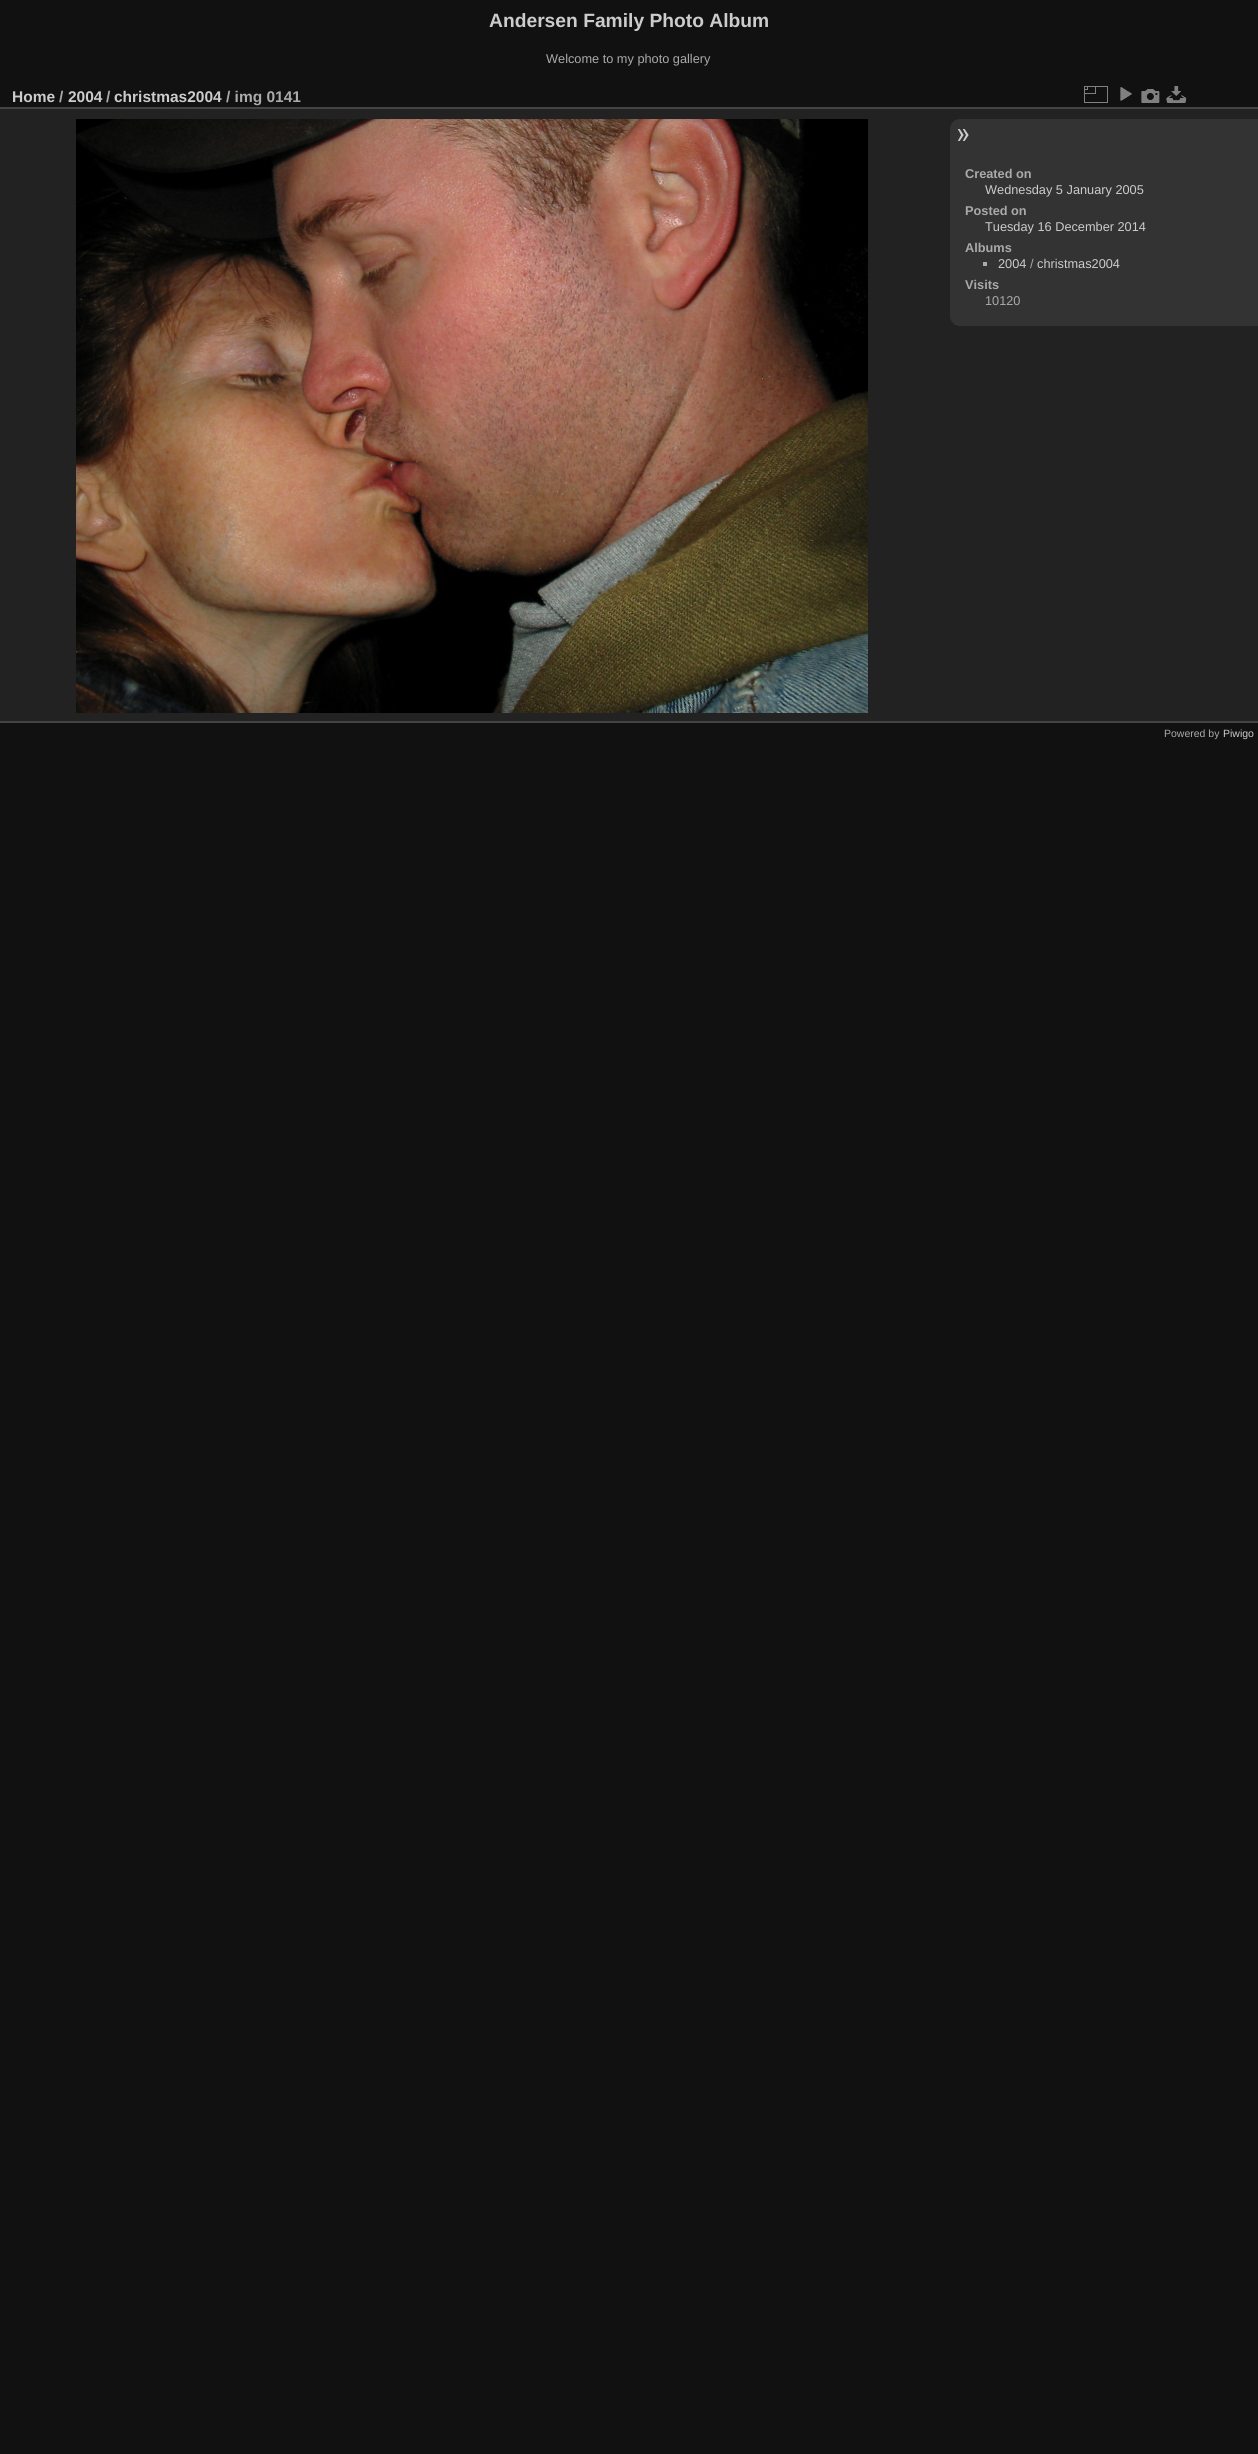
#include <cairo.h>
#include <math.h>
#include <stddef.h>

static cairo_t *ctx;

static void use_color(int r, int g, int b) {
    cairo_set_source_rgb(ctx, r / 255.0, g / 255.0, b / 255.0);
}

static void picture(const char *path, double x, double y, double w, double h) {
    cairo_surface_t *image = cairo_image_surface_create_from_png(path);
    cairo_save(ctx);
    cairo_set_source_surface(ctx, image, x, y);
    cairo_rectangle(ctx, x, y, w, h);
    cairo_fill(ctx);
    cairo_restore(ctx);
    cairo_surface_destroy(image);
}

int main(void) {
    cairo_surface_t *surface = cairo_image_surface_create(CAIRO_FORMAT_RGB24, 1258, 2454);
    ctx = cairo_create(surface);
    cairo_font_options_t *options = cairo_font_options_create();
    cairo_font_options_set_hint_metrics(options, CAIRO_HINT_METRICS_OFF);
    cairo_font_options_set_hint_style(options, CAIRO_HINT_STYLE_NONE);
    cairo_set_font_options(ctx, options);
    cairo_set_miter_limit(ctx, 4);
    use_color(17, 17, 17);
    cairo_paint(ctx);
    cairo_select_font_face(ctx, "Liberation Sans", CAIRO_FONT_SLANT_NORMAL, CAIRO_FONT_WEIGHT_BOLD);
    cairo_set_font_size(ctx, 19.25);
    use_color(204, 204, 204);
    cairo_move_to(ctx, 489, 27);
    cairo_show_text(ctx, "Andersen Family Photo Album");
    cairo_select_font_face(ctx, "Liberation Sans", CAIRO_FONT_SLANT_NORMAL, CAIRO_FONT_WEIGHT_NORMAL);
    cairo_set_font_size(ctx, 12.75);
    use_color(170, 170, 170);
    cairo_move_to(ctx, 546, 63);
    cairo_show_text(ctx, "Welcome to my photo gallery");
    use_color(34, 34, 34);
    cairo_rectangle(ctx, 0, 109, 1258, 612);
    cairo_fill(ctx);
    use_color(68, 68, 68);
    cairo_rectangle(ctx, 0, 721, 1258, 2);
    cairo_fill(ctx);
    cairo_rectangle(ctx, 0, 107, 1258, 2);
    cairo_fill(ctx);
    cairo_select_font_face(ctx, "Liberation Sans", CAIRO_FONT_SLANT_NORMAL, CAIRO_FONT_WEIGHT_BOLD);
    cairo_set_font_size(ctx, 15.5);
    use_color(204, 204, 204);
    cairo_move_to(ctx, 12, 102);
    cairo_show_text(ctx, "Home");
    use_color(170, 170, 170);
    cairo_move_to(ctx, 59, 102);
    cairo_show_text(ctx, "/");
    use_color(204, 204, 204);
    cairo_move_to(ctx, 68, 102);
    cairo_show_text(ctx, "2004");
    use_color(170, 170, 170);
    cairo_move_to(ctx, 106, 102);
    cairo_show_text(ctx, "/");
    use_color(204, 204, 204);
    cairo_move_to(ctx, 114, 102);
    cairo_show_text(ctx, "christmas2004");
    use_color(170, 170, 170);
    cairo_move_to(ctx, 226, 102);
    cairo_show_text(ctx, "/ img 0141");
    picture("img1.png", 1084, 86, 24, 17);
    picture("img2.png", 1120, 87, 12, 14);
    picture("img3.png", 1141, 89, 19, 14);
    picture("img4.png", 1166, 86, 21, 17);
    picture("img5.png", 76, 119, 792, 594);
    use_color(51, 51, 51);
    cairo_new_path(ctx);
    cairo_move_to(ctx, 960, 119);
    cairo_line_to(ctx, 1258, 119);
    cairo_line_to(ctx, 1258, 326);
    cairo_line_to(ctx, 960, 326);
    cairo_curve_to(ctx, 954.5, 326, 950, 321.5, 950, 316);
    cairo_line_to(ctx, 950, 129);
    cairo_curve_to(ctx, 950, 123.5, 954.5, 119, 960, 119);
    cairo_close_path(ctx);
    cairo_fill(ctx);
    picture("img6.png", 957, 129, 12, 12);
    cairo_set_font_size(ctx, 12.75);
    use_color(170, 170, 170);
    cairo_move_to(ctx, 965, 178);
    cairo_show_text(ctx, "Created on");
    cairo_select_font_face(ctx, "Liberation Sans", CAIRO_FONT_SLANT_NORMAL, CAIRO_FONT_WEIGHT_NORMAL);
    use_color(204, 204, 204);
    cairo_move_to(ctx, 985, 194);
    cairo_show_text(ctx, "Wednesday 5 January 2005");
    cairo_select_font_face(ctx, "Liberation Sans", CAIRO_FONT_SLANT_NORMAL, CAIRO_FONT_WEIGHT_BOLD);
    use_color(170, 170, 170);
    cairo_move_to(ctx, 965, 215);
    cairo_show_text(ctx, "Posted on");
    cairo_select_font_face(ctx, "Liberation Sans", CAIRO_FONT_SLANT_NORMAL, CAIRO_FONT_WEIGHT_NORMAL);
    use_color(204, 204, 204);
    cairo_move_to(ctx, 985, 231);
    cairo_show_text(ctx, "Tuesday 16 December 2014");
    cairo_select_font_face(ctx, "Liberation Sans", CAIRO_FONT_SLANT_NORMAL, CAIRO_FONT_WEIGHT_BOLD);
    use_color(170, 170, 170);
    cairo_move_to(ctx, 965, 252);
    cairo_show_text(ctx, "Albums");
    cairo_rectangle(ctx, 983, 262, 4, 4);
    cairo_fill(ctx);
    cairo_select_font_face(ctx, "Liberation Sans", CAIRO_FONT_SLANT_NORMAL, CAIRO_FONT_WEIGHT_NORMAL);
    use_color(204, 204, 204);
    cairo_move_to(ctx, 998, 268);
    cairo_show_text(ctx, "2004");
    use_color(170, 170, 170);
    cairo_move_to(ctx, 1030, 268);
    cairo_show_text(ctx, "/");
    use_color(204, 204, 204);
    cairo_move_to(ctx, 1037, 268);
    cairo_show_text(ctx, "christmas2004");
    cairo_select_font_face(ctx, "Liberation Sans", CAIRO_FONT_SLANT_NORMAL, CAIRO_FONT_WEIGHT_BOLD);
    use_color(170, 170, 170);
    cairo_move_to(ctx, 965, 289);
    cairo_show_text(ctx, "Visits");
    cairo_select_font_face(ctx, "Liberation Sans", CAIRO_FONT_SLANT_NORMAL, CAIRO_FONT_WEIGHT_NORMAL);
    cairo_move_to(ctx, 985, 305);
    cairo_show_text(ctx, "10120");
    cairo_set_font_size(ctx, 10.5);
    cairo_move_to(ctx, 1164, 737);
    cairo_show_text(ctx, "Powered by");
    use_color(204, 204, 204);
    cairo_move_to(ctx, 1223, 737);
    cairo_show_text(ctx, "Piwigo");
    cairo_surface_write_to_png(surface, "result.png");
    cairo_font_options_destroy(options);
    cairo_destroy(ctx);
    cairo_surface_destroy(surface);
    return 0;
}
